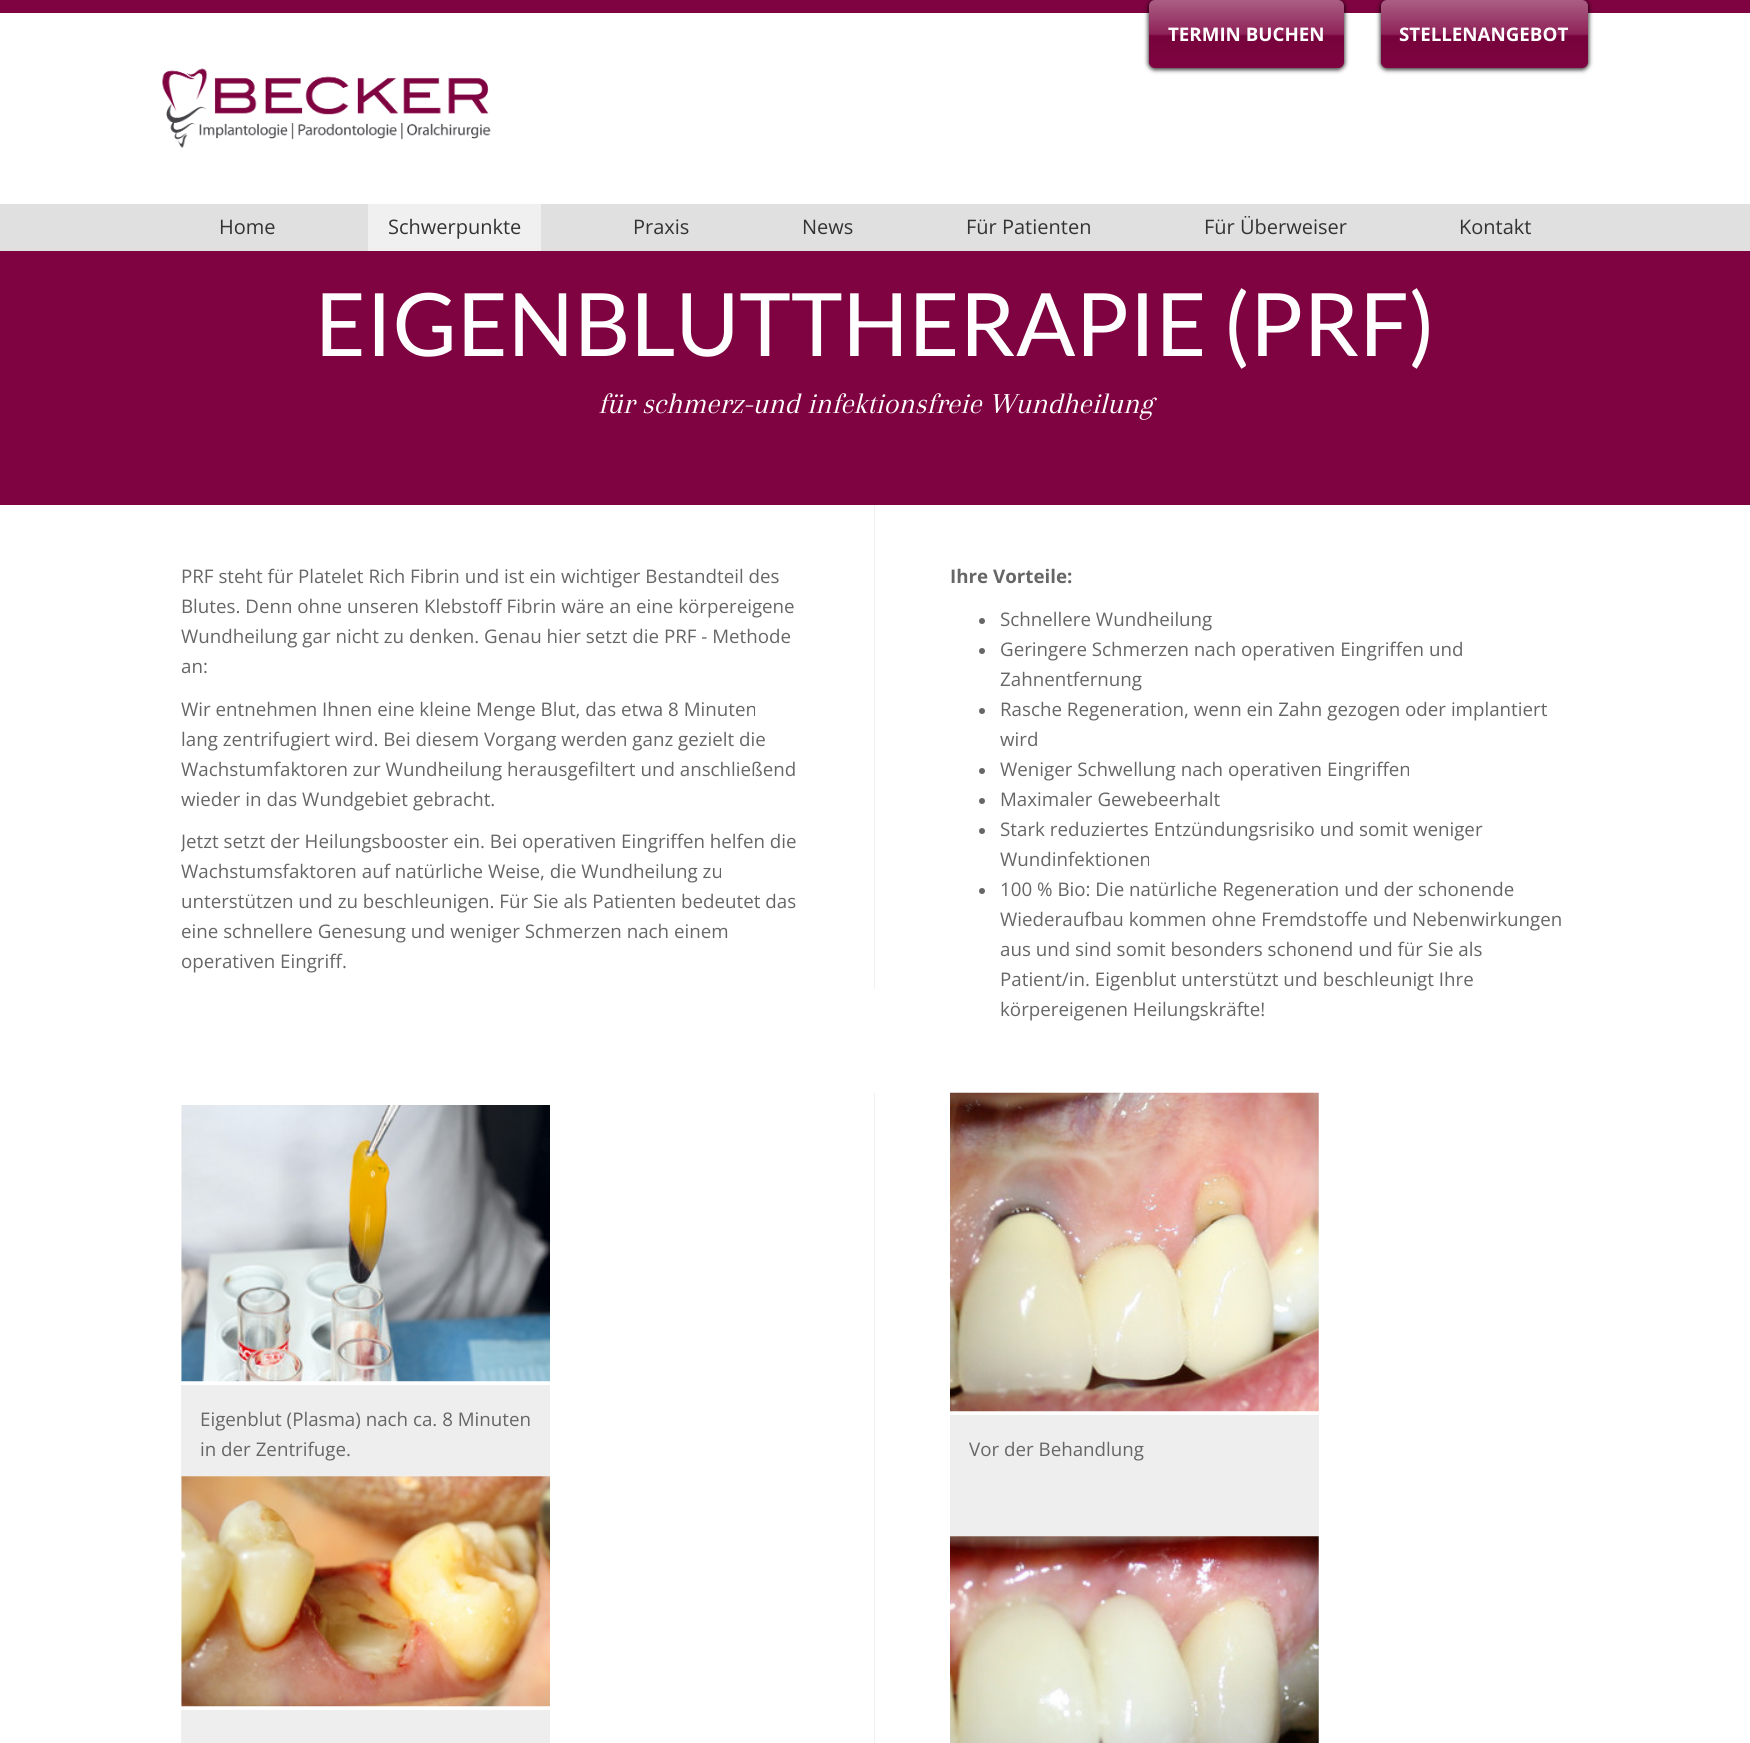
#include <cairo.h>
#include <math.h>
#include <stddef.h>

static cairo_t *ctx;

static void use_color(int r, int g, int b) {
    cairo_set_source_rgb(ctx, r / 255.0, g / 255.0, b / 255.0);
}

static void round_rect(double x, double y, double w, double h, double r) {
    cairo_new_sub_path(ctx);
    cairo_arc(ctx, x + w - r, y + h - r, r, 0, M_PI / 2);
    cairo_arc(ctx, x + r, y + h - r, r, M_PI / 2, M_PI);
    cairo_arc(ctx, x + r, y + r, r, M_PI, 1.5 * M_PI);
    cairo_arc(ctx, x + w - r, y + r, r, 1.5 * M_PI, 2 * M_PI);
    cairo_close_path(ctx);
}

static void shadow(double x, double y, double w, double h, double r, double blur, double alpha) {
    cairo_push_group_with_content(ctx, CAIRO_CONTENT_ALPHA);
    cairo_set_operator(ctx, CAIRO_OPERATOR_SOURCE);
    for (int i = 15; i >= -15 && fmin(w, h) + blur * i / 3 > 0; i -= 2) {
        double e = blur * i / 6;
        cairo_set_source_rgba(ctx, 0, 0, 0, alpha * erfc((i - 1) / 8.5) / 2);
        round_rect(x - e, y - e, w + 2 * e, h + 2 * e, fmax(0, fmin(r + e + blur * .6, fmin(w, h) / 2 + e)));
        cairo_fill(ctx);
    }
    cairo_pattern_t *soft = cairo_pop_group(ctx);
    cairo_mask(ctx, soft);
    cairo_pattern_destroy(soft);
}

static void picture(const char *path, double x, double y, double w, double h) {
    cairo_surface_t *image = cairo_image_surface_create_from_png(path);
    cairo_save(ctx);
    cairo_set_source_surface(ctx, image, x, y);
    cairo_rectangle(ctx, x, y, w, h);
    cairo_fill(ctx);
    cairo_restore(ctx);
    cairo_surface_destroy(image);
}

int main(void) {
    cairo_surface_t *surface = cairo_image_surface_create(CAIRO_FORMAT_RGB24, 1750, 1743);
    ctx = cairo_create(surface);
    cairo_font_options_t *options = cairo_font_options_create();
    cairo_font_options_set_hint_metrics(options, CAIRO_HINT_METRICS_OFF);
    cairo_font_options_set_hint_style(options, CAIRO_HINT_STYLE_NONE);
    cairo_set_font_options(ctx, options);
    cairo_set_miter_limit(ctx, 4);
    cairo_pattern_t *gradient;
    use_color(255, 255, 255);
    cairo_paint(ctx);
    use_color(127, 3, 65);
    cairo_rectangle(ctx, 0, 0, 1750, 13);
    cairo_fill(ctx);
    use_color(0, 0, 0);
    shadow(1149, 1, 195, 68, 6, 2.5, 0.6);
    shadow(1149, 1, 195, 68, 6, 2.5, 0.6);
    gradient = cairo_pattern_create_linear(1246, 0, 1246, 68);
    cairo_pattern_add_color_stop_rgba(gradient, 0, 0.667, 0.373, 0.518, 1);
    cairo_pattern_add_color_stop_rgba(gradient, 0.5, 0.561, 0.133, 0.345, 1);
    cairo_pattern_add_color_stop_rgba(gradient, 0.53, 0.463, 0.012, 0.235, 1);
    cairo_pattern_add_color_stop_rgba(gradient, 1, 0.494, 0.012, 0.251, 1);
    cairo_set_source(ctx, gradient);
    cairo_pattern_destroy(gradient);
    round_rect(1149, 0, 195, 68, 6);
    cairo_fill(ctx);
    cairo_select_font_face(ctx, "Open Sans", CAIRO_FONT_SLANT_NORMAL, CAIRO_FONT_WEIGHT_BOLD);
    cairo_set_font_size(ctx, 18.75);
    use_color(255, 255, 255);
    cairo_move_to(ctx, 1168, 41);
    cairo_show_text(ctx, "TERMIN BUCHEN");
    use_color(0, 0, 0);
    shadow(1381, 1, 207, 68, 6, 2.5, 0.6);
    shadow(1381, 1, 207, 68, 6, 2.5, 0.6);
    gradient = cairo_pattern_create_linear(1484, 0, 1484, 68);
    cairo_pattern_add_color_stop_rgba(gradient, 0, 0.667, 0.373, 0.518, 1);
    cairo_pattern_add_color_stop_rgba(gradient, 0.5, 0.561, 0.133, 0.345, 1);
    cairo_pattern_add_color_stop_rgba(gradient, 0.53, 0.463, 0.012, 0.235, 1);
    cairo_pattern_add_color_stop_rgba(gradient, 1, 0.494, 0.012, 0.251, 1);
    cairo_set_source(ctx, gradient);
    cairo_pattern_destroy(gradient);
    round_rect(1381, 0, 207, 68, 6);
    cairo_fill(ctx);
    use_color(255, 255, 255);
    cairo_move_to(ctx, 1399, 41);
    cairo_show_text(ctx, "STELLENANGEBOT");
    picture("img1.png", 162, 68, 329, 80);
    use_color(224, 224, 224);
    cairo_rectangle(ctx, 0, 204, 1750, 47);
    cairo_fill(ctx);
    cairo_select_font_face(ctx, "Open Sans", CAIRO_FONT_SLANT_NORMAL, CAIRO_FONT_WEIGHT_NORMAL);
    cairo_set_font_size(ctx, 20);
    use_color(51, 51, 51);
    cairo_move_to(ctx, 219, 234);
    cairo_show_text(ctx, "Home");
    use_color(240, 240, 240);
    cairo_rectangle(ctx, 368, 204, 173, 47);
    cairo_fill(ctx);
    use_color(51, 51, 51);
    cairo_move_to(ctx, 388, 234);
    cairo_show_text(ctx, "Schwerpunkte");
    cairo_move_to(ctx, 633, 234);
    cairo_show_text(ctx, "Praxis");
    cairo_move_to(ctx, 802, 234);
    cairo_show_text(ctx, "News");
    cairo_move_to(ctx, 966, 234);
    cairo_show_text(ctx, "Für Patienten");
    cairo_move_to(ctx, 1204, 234);
    cairo_show_text(ctx, "Für Überweiser");
    cairo_move_to(ctx, 1459, 234);
    cairo_show_text(ctx, "Kontakt");
    use_color(127, 3, 65);
    cairo_rectangle(ctx, 0, 251, 1750, 254);
    cairo_fill(ctx);
    cairo_select_font_face(ctx, "Lato", CAIRO_FONT_SLANT_NORMAL, CAIRO_FONT_WEIGHT_NORMAL);
    cairo_set_font_size(ctx, 87.5);
    use_color(255, 255, 255);
    cairo_move_to(ctx, 315, 356);
    cairo_show_text(ctx, "EIGENBLUTTHERAPIE (PRF)");
    cairo_select_font_face(ctx, "Arapey", CAIRO_FONT_SLANT_ITALIC, CAIRO_FONT_WEIGHT_NORMAL);
    cairo_set_font_size(ctx, 30);
    cairo_move_to(ctx, 598, 413);
    cairo_show_text(ctx, "für schmerz-und infektionsfreie Wundheilung");
    use_color(240, 240, 240);
    cairo_rectangle(ctx, 874, 505, 1, 484);
    cairo_fill(ctx);
    cairo_select_font_face(ctx, "Open Sans", CAIRO_FONT_SLANT_NORMAL, CAIRO_FONT_WEIGHT_NORMAL);
    cairo_set_font_size(ctx, 18.75);
    use_color(102, 102, 102);
    cairo_move_to(ctx, 181, 583);
    cairo_show_text(ctx, "PRF steht für Platelet Rich Fibrin und ist ein wichtiger Bestandteil des");
    cairo_move_to(ctx, 181, 613);
    cairo_show_text(ctx, "Blutes. Denn ohne unseren Klebstoff Fibrin wäre an eine körpereigene");
    cairo_move_to(ctx, 181, 643);
    cairo_show_text(ctx, "Wundheilung gar nicht zu denken. Genau hier setzt die PRF - Methode");
    cairo_move_to(ctx, 181, 673);
    cairo_show_text(ctx, "an:");
    cairo_move_to(ctx, 181, 716);
    cairo_show_text(ctx, "Wir entnehmen Ihnen eine kleine Menge Blut, das etwa 8 Minuten");
    cairo_move_to(ctx, 181, 746);
    cairo_show_text(ctx, "lang zentrifugiert wird. Bei diesem Vorgang werden ganz gezielt die");
    cairo_move_to(ctx, 181, 776);
    cairo_show_text(ctx, "Wachstumfaktoren zur Wundheilung herausgefiltert und anschließend");
    cairo_move_to(ctx, 181, 806);
    cairo_show_text(ctx, "wieder in das Wundgebiet gebracht.");
    cairo_save(ctx);
    cairo_rectangle(ctx, 181, 561, 618, 428);
    cairo_clip(ctx);
    cairo_move_to(ctx, 181, 848);
    cairo_show_text(ctx, "Jetzt setzt der Heilungsbooster ein. Bei operativen Eingriffen helfen die");
    cairo_restore(ctx);
    cairo_move_to(ctx, 181, 878);
    cairo_show_text(ctx, "Wachstumsfaktoren auf natürliche Weise, die Wundheilung zu");
    cairo_move_to(ctx, 181, 908);
    cairo_show_text(ctx, "unterstützen und zu beschleunigen. Für Sie als Patienten bedeutet das");
    cairo_move_to(ctx, 181, 938);
    cairo_show_text(ctx, "eine schnellere Genesung und weniger Schmerzen nach einem");
    cairo_move_to(ctx, 181, 968);
    cairo_show_text(ctx, "operativen Eingriff.");
    cairo_select_font_face(ctx, "Open Sans", CAIRO_FONT_SLANT_NORMAL, CAIRO_FONT_WEIGHT_BOLD);
    cairo_move_to(ctx, 950, 583);
    cairo_show_text(ctx, "Ihre Vorteile:");
    cairo_new_path(ctx);
    cairo_arc(ctx, 982, 621, 3, 0, 2 * M_PI);
    cairo_fill(ctx);
    cairo_select_font_face(ctx, "Open Sans", CAIRO_FONT_SLANT_NORMAL, CAIRO_FONT_WEIGHT_NORMAL);
    cairo_move_to(ctx, 1000, 626);
    cairo_show_text(ctx, "Schnellere Wundheilung");
    cairo_new_path(ctx);
    cairo_arc(ctx, 982, 651, 3, 0, 2 * M_PI);
    cairo_fill(ctx);
    cairo_move_to(ctx, 1000, 656);
    cairo_show_text(ctx, "Geringere Schmerzen nach operativen Eingriffen und");
    cairo_move_to(ctx, 1000, 686);
    cairo_show_text(ctx, "Zahnentfernung");
    cairo_new_path(ctx);
    cairo_arc(ctx, 982, 711, 3, 0, 2 * M_PI);
    cairo_fill(ctx);
    cairo_move_to(ctx, 1000, 716);
    cairo_show_text(ctx, "Rasche Regeneration, wenn ein Zahn gezogen oder implantiert");
    cairo_move_to(ctx, 1000, 746);
    cairo_show_text(ctx, "wird");
    cairo_new_path(ctx);
    cairo_arc(ctx, 982, 771, 3, 0, 2 * M_PI);
    cairo_fill(ctx);
    cairo_move_to(ctx, 1000, 776);
    cairo_show_text(ctx, "Weniger Schwellung nach operativen Eingriffen");
    cairo_new_path(ctx);
    cairo_arc(ctx, 982, 801, 3, 0, 2 * M_PI);
    cairo_fill(ctx);
    cairo_move_to(ctx, 1000, 806);
    cairo_show_text(ctx, "Maximaler Gewebeerhalt");
    cairo_new_path(ctx);
    cairo_arc(ctx, 982, 831, 3, 0, 2 * M_PI);
    cairo_fill(ctx);
    cairo_move_to(ctx, 1000, 836);
    cairo_show_text(ctx, "Stark reduziertes Entzündungsrisiko und somit weniger");
    cairo_move_to(ctx, 1000, 866);
    cairo_show_text(ctx, "Wundinfektionen");
    cairo_new_path(ctx);
    cairo_arc(ctx, 982, 891, 3, 0, 2 * M_PI);
    cairo_fill(ctx);
    cairo_move_to(ctx, 1000, 896);
    cairo_show_text(ctx, "100 % Bio: Die natürliche Regeneration und der schonende");
    cairo_move_to(ctx, 1000, 926);
    cairo_show_text(ctx, "Wiederaufbau kommen ohne Fremdstoffe und Nebenwirkungen");
    cairo_move_to(ctx, 1000, 956);
    cairo_show_text(ctx, "aus und sind somit besonders schonend und für Sie als");
    cairo_move_to(ctx, 1000, 986);
    cairo_show_text(ctx, "Patient/in. Eigenblut unterstützt und beschleunigt Ihre");
    cairo_move_to(ctx, 1000, 1016);
    cairo_show_text(ctx, "körpereigenen Heilungskräfte!");
    use_color(240, 240, 240);
    cairo_rectangle(ctx, 874, 1093, 1, 650);
    cairo_fill(ctx);
    picture("img2.png", 181, 1105, 369, 277);
    use_color(238, 238, 238);
    cairo_rectangle(ctx, 181, 1385, 369, 91);
    cairo_fill(ctx);
    use_color(102, 102, 102);
    cairo_move_to(ctx, 200, 1426);
    cairo_show_text(ctx, "Eigenblut (Plasma) nach ca. 8 Minuten");
    cairo_move_to(ctx, 200, 1456);
    cairo_show_text(ctx, "in der Zentrifuge.");
    picture("img3.png", 181, 1476, 369, 231);
    use_color(238, 238, 238);
    cairo_rectangle(ctx, 181, 1710, 369, 33);
    cairo_fill(ctx);
    picture("img4.png", 950, 1092, 369, 320);
    cairo_rectangle(ctx, 950, 1415, 369, 121);
    cairo_fill(ctx);
    use_color(102, 102, 102);
    cairo_move_to(ctx, 969, 1456);
    cairo_show_text(ctx, "Vor der Behandlung");
    picture("img5.png", 950, 1536, 369, 207);
    cairo_surface_write_to_png(surface, "result.png");
    cairo_font_options_destroy(options);
    cairo_destroy(ctx);
    cairo_surface_destroy(surface);
    return 0;
}
